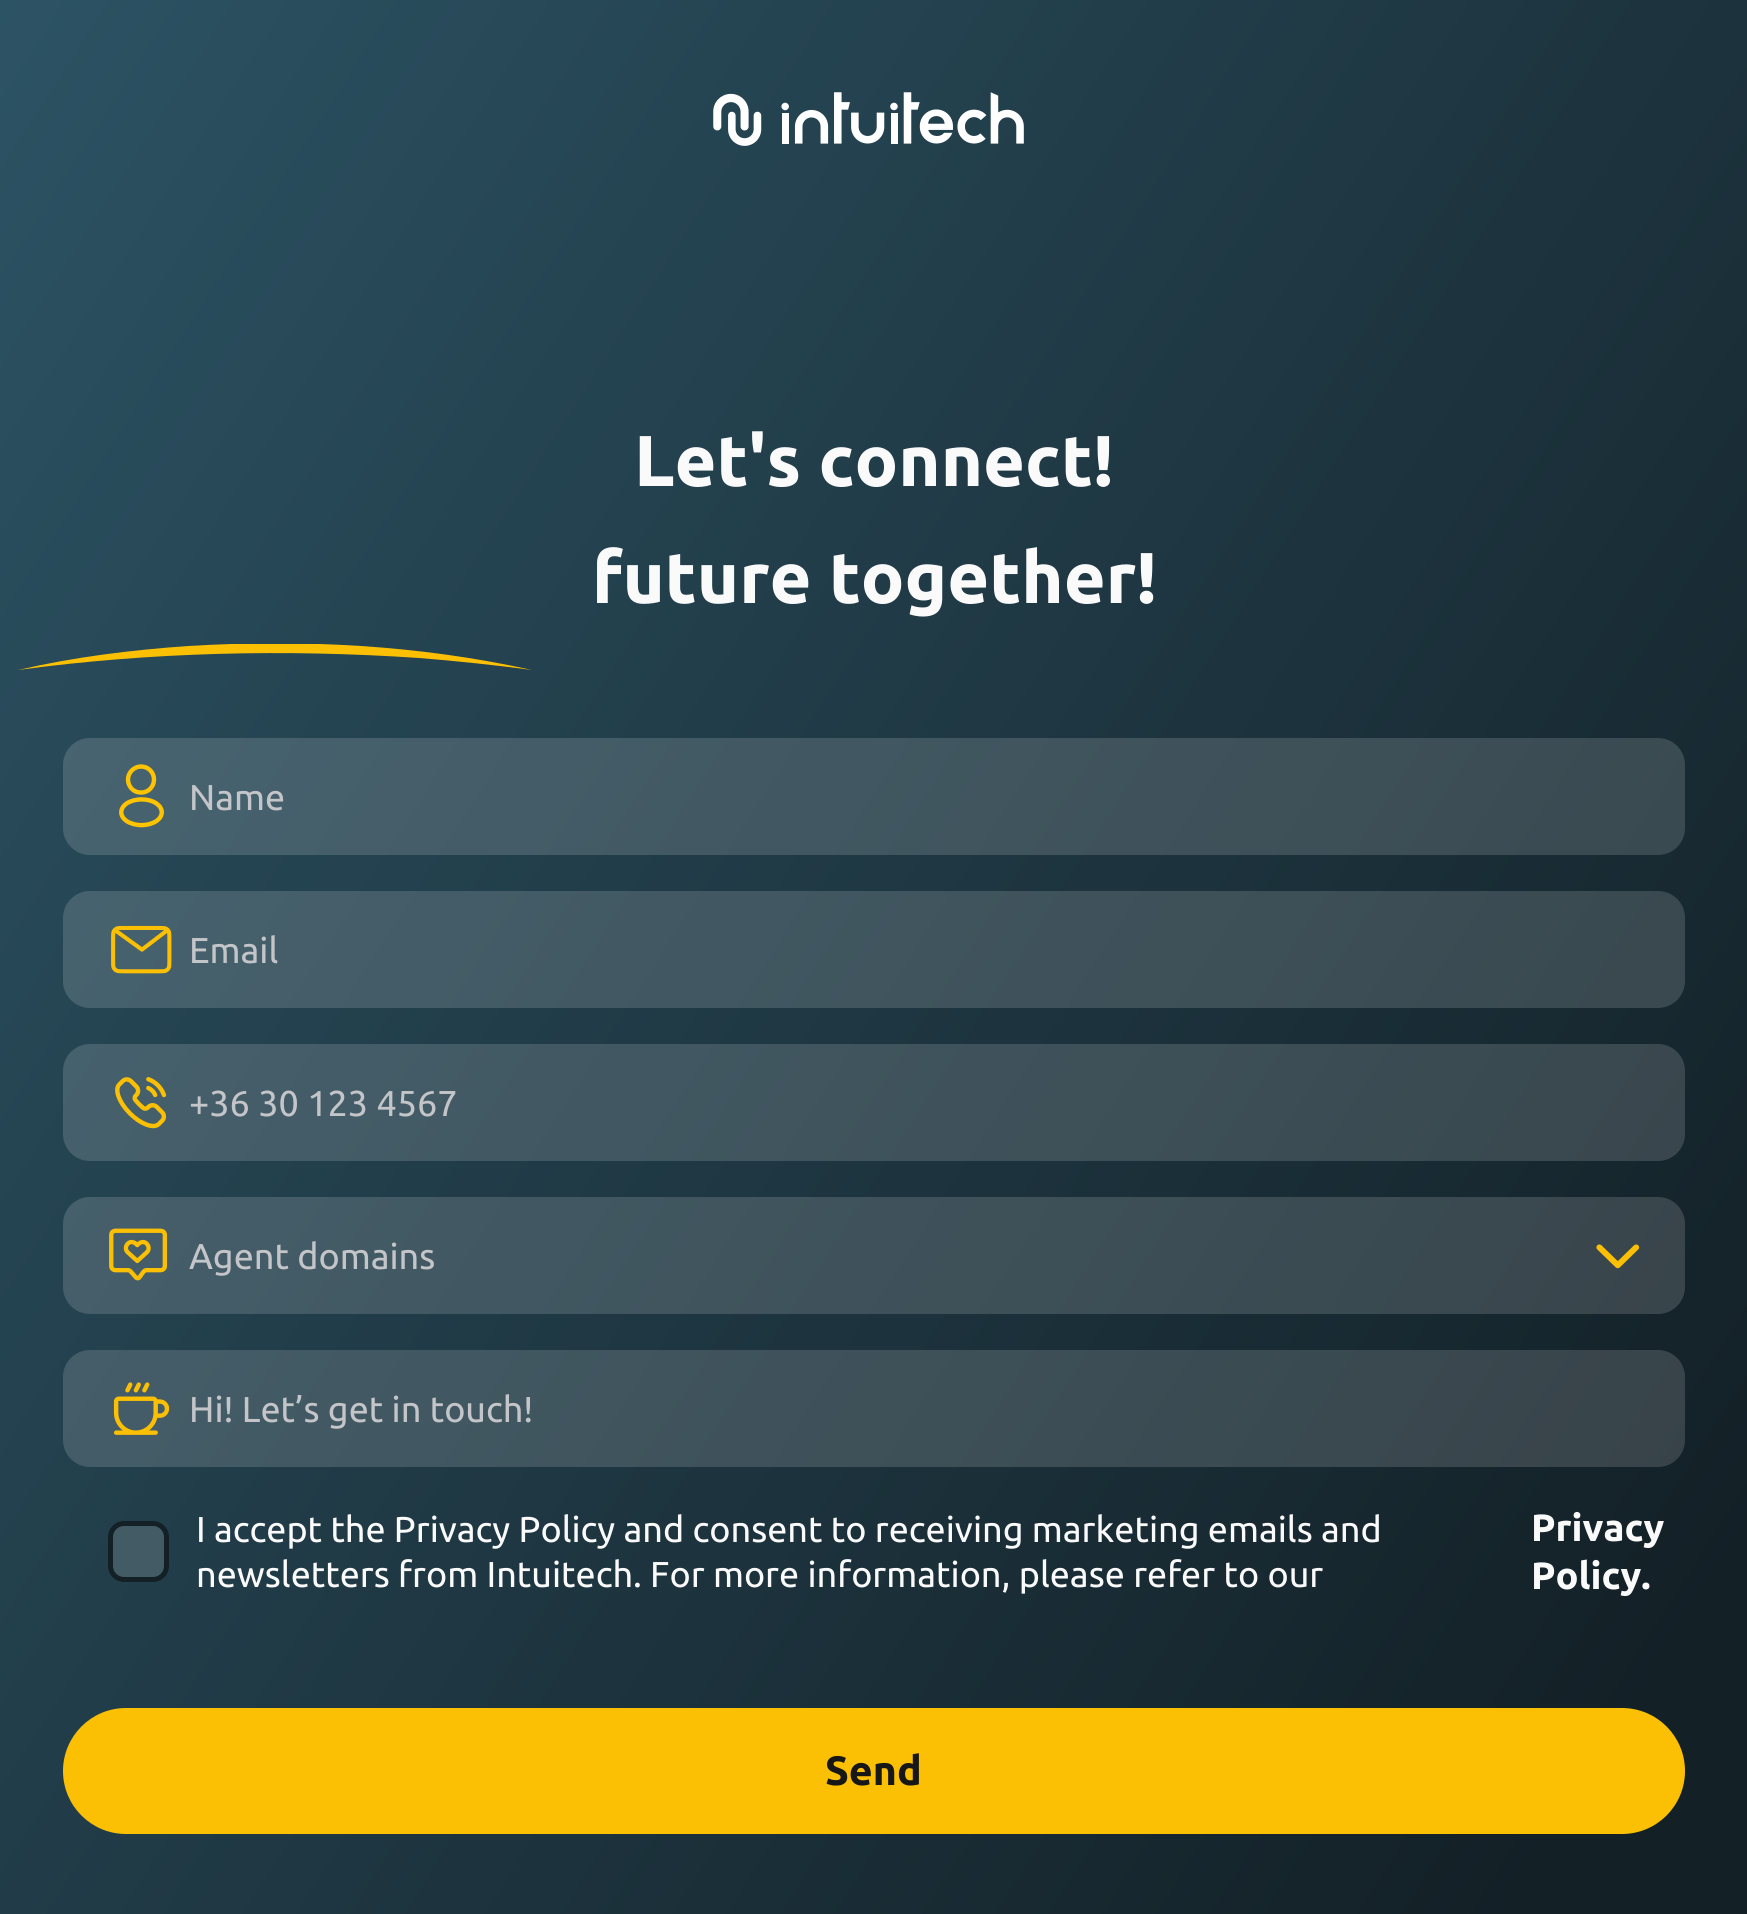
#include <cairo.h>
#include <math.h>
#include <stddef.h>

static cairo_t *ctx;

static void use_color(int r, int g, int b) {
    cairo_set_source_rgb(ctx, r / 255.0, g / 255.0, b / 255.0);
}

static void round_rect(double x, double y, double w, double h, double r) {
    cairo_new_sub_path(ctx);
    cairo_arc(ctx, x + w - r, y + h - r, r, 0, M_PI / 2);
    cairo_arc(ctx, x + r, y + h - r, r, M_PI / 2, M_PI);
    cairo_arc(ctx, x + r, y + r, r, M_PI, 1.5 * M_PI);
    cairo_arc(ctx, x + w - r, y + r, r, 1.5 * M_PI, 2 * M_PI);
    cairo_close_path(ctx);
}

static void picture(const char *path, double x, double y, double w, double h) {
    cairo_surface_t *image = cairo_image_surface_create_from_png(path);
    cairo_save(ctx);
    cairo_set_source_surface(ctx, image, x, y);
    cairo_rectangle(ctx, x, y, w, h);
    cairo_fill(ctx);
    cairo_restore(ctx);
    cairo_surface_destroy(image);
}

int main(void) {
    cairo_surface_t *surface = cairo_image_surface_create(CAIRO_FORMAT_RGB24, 1747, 1914);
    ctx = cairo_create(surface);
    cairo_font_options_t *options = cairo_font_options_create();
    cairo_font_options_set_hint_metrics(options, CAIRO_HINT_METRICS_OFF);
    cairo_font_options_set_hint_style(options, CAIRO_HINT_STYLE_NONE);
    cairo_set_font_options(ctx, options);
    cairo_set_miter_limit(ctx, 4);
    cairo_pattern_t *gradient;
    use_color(255, 255, 255);
    cairo_paint(ctx);
    gradient = cairo_pattern_create_linear(-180, 281, 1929, 1634);
    cairo_pattern_add_color_stop_rgba(gradient, 0, 0.173, 0.325, 0.392, 1);
    cairo_pattern_add_color_stop_rgba(gradient, 0.92, 0.075, 0.125, 0.149, 1);
    cairo_set_source(ctx, gradient);
    cairo_pattern_destroy(gradient);
    cairo_rectangle(ctx, 0, 0, 1747, 1914);
    cairo_fill(ctx);
    picture("img1.png", 713, 93, 36, 38);
    picture("img2.png", 781, 92, 243, 52);
    picture("img3.png", 728, 111, 34, 35);
    cairo_select_font_face(ctx, "Ubuntu", CAIRO_FONT_SLANT_NORMAL, CAIRO_FONT_WEIGHT_BOLD);
    cairo_set_font_size(ctx, 72);
    use_color(250, 250, 250);
    cairo_move_to(ctx, 634, 486);
    cairo_show_text(ctx, "Let's connect!");
    cairo_move_to(ctx, 592, 603);
    cairo_show_text(ctx, "future together!");
    cairo_save(ctx);
    cairo_rectangle(ctx, 18, 644, 513, 27);
    cairo_clip(ctx);
    use_color(251, 192, 4);
    cairo_new_path(ctx);
    cairo_move_to(ctx, 18, 670);
    cairo_curve_to(ctx, 74, 657, 131, 650, 188, 646);
    cairo_curve_to(ctx, 303, 639, 419, 645, 532, 670);
    cairo_curve_to(ctx, 494, 665, 457, 661, 419, 658);
    cairo_curve_to(ctx, 286, 649, 151, 652, 18, 670);
    cairo_close_path(ctx);
    cairo_fill(ctx);
    cairo_restore(ctx);
    cairo_set_source_rgba(ctx, 1, 1, 1, 0.15);
    round_rect(63, 738, 1622, 117, 27);
    cairo_fill(ctx);
    cairo_new_path(ctx);
    cairo_move_to(ctx, 141.5, 792.5);
    cairo_line_to(ctx, 140.5, 792.5);
    cairo_curve_to(ctx, 133.5, 792.5, 128, 786.5, 128, 779.5);
    cairo_curve_to(ctx, 128, 772.5, 134, 766.5, 141, 766.5);
    cairo_curve_to(ctx, 148.5, 766.5, 154, 772.5, 154, 779.5);
    cairo_curve_to(ctx, 154, 786.5, 148.5, 792.5, 141.5, 792.5);
    cairo_close_path(ctx);
    use_color(255, 195, 0);
    cairo_set_line_width(ctx, 4.4);
    cairo_set_line_cap(ctx, CAIRO_LINE_CAP_ROUND);
    cairo_set_line_join(ctx, CAIRO_LINE_JOIN_ROUND);
    cairo_stroke(ctx);
    cairo_new_path(ctx);
    cairo_move_to(ctx, 126.5, 803.5);
    cairo_curve_to(ctx, 119.5, 808.5, 119.5, 816, 126.5, 821);
    cairo_curve_to(ctx, 135, 826.5, 148, 826.5, 156.5, 821);
    cairo_curve_to(ctx, 163.5, 816, 163.5, 808.5, 156.5, 803.5);
    cairo_curve_to(ctx, 148.5, 798, 135, 798, 126.5, 803.5);
    cairo_close_path(ctx);
    cairo_stroke(ctx);
    cairo_select_font_face(ctx, "Ubuntu", CAIRO_FONT_SLANT_NORMAL, CAIRO_FONT_WEIGHT_NORMAL);
    cairo_set_font_size(ctx, 36);
    use_color(196, 197, 200);
    cairo_move_to(ctx, 189, 810);
    cairo_show_text(ctx, "Name");
    cairo_set_source_rgba(ctx, 1, 1, 1, 0.15);
    round_rect(63, 891, 1622, 117, 27);
    cairo_fill(ctx);
    picture("img4.png", 111, 925, 61, 49);
    use_color(196, 197, 200);
    cairo_move_to(ctx, 189, 963);
    cairo_show_text(ctx, "Email");
    cairo_set_source_rgba(ctx, 1, 1, 1, 0.15);
    round_rect(63, 1044, 1622, 117, 27);
    cairo_fill(ctx);
    picture("img5.png", 115, 1077, 52, 52);
    use_color(196, 197, 200);
    cairo_move_to(ctx, 189, 1116);
    cairo_show_text(ctx, "+36 30 123 4567");
    cairo_set_source_rgba(ctx, 1, 1, 1, 0.15);
    round_rect(63, 1197, 1622, 117, 27);
    cairo_fill(ctx);
    picture("img6.png", 109, 1228, 59, 53);
    use_color(196, 197, 200);
    cairo_move_to(ctx, 189, 1269);
    cairo_show_text(ctx, "Agent domains");
    picture("img7.png", 1596, 1244, 44, 25);
    cairo_set_source_rgba(ctx, 1, 1, 1, 0.15);
    round_rect(63, 1350, 1622, 117, 27);
    cairo_fill(ctx);
    picture("img8.png", 113, 1382, 57, 53);
    use_color(196, 197, 200);
    cairo_move_to(ctx, 189, 1422);
    cairo_show_text(ctx, "Hi! Let’s get in touch!");
    use_color(67, 91, 101);
    round_rect(110.5, 1523.5, 56, 56, 13.5);
    cairo_fill_preserve(ctx);
    use_color(19, 32, 38);
    cairo_set_line_width(ctx, 5);
    cairo_set_line_cap(ctx, CAIRO_LINE_CAP_BUTT);
    cairo_set_line_join(ctx, CAIRO_LINE_JOIN_MITER);
    cairo_stroke(ctx);
    use_color(250, 250, 250);
    cairo_move_to(ctx, 196, 1542);
    cairo_show_text(ctx, "I accept the Privacy Policy and consent to receiving marketing emails and");
    cairo_move_to(ctx, 196, 1587);
    cairo_show_text(ctx, "newsletters from Intuitech. For more information, please refer to our");
    cairo_select_font_face(ctx, "Ubuntu", CAIRO_FONT_SLANT_NORMAL, CAIRO_FONT_WEIGHT_BOLD);
    cairo_set_font_size(ctx, 38);
    cairo_move_to(ctx, 1531, 1541);
    cairo_show_text(ctx, "Privacy");
    cairo_move_to(ctx, 1531, 1589);
    cairo_show_text(ctx, "Policy.");
    use_color(251, 192, 4);
    round_rect(63, 1708, 1622, 126, 63);
    cairo_fill(ctx);
    cairo_set_font_size(ctx, 41);
    use_color(23, 23, 23);
    cairo_move_to(ctx, 825, 1785);
    cairo_show_text(ctx, "Send");
    cairo_surface_write_to_png(surface, "result.png");
    cairo_font_options_destroy(options);
    cairo_destroy(ctx);
    cairo_surface_destroy(surface);
    return 0;
}
